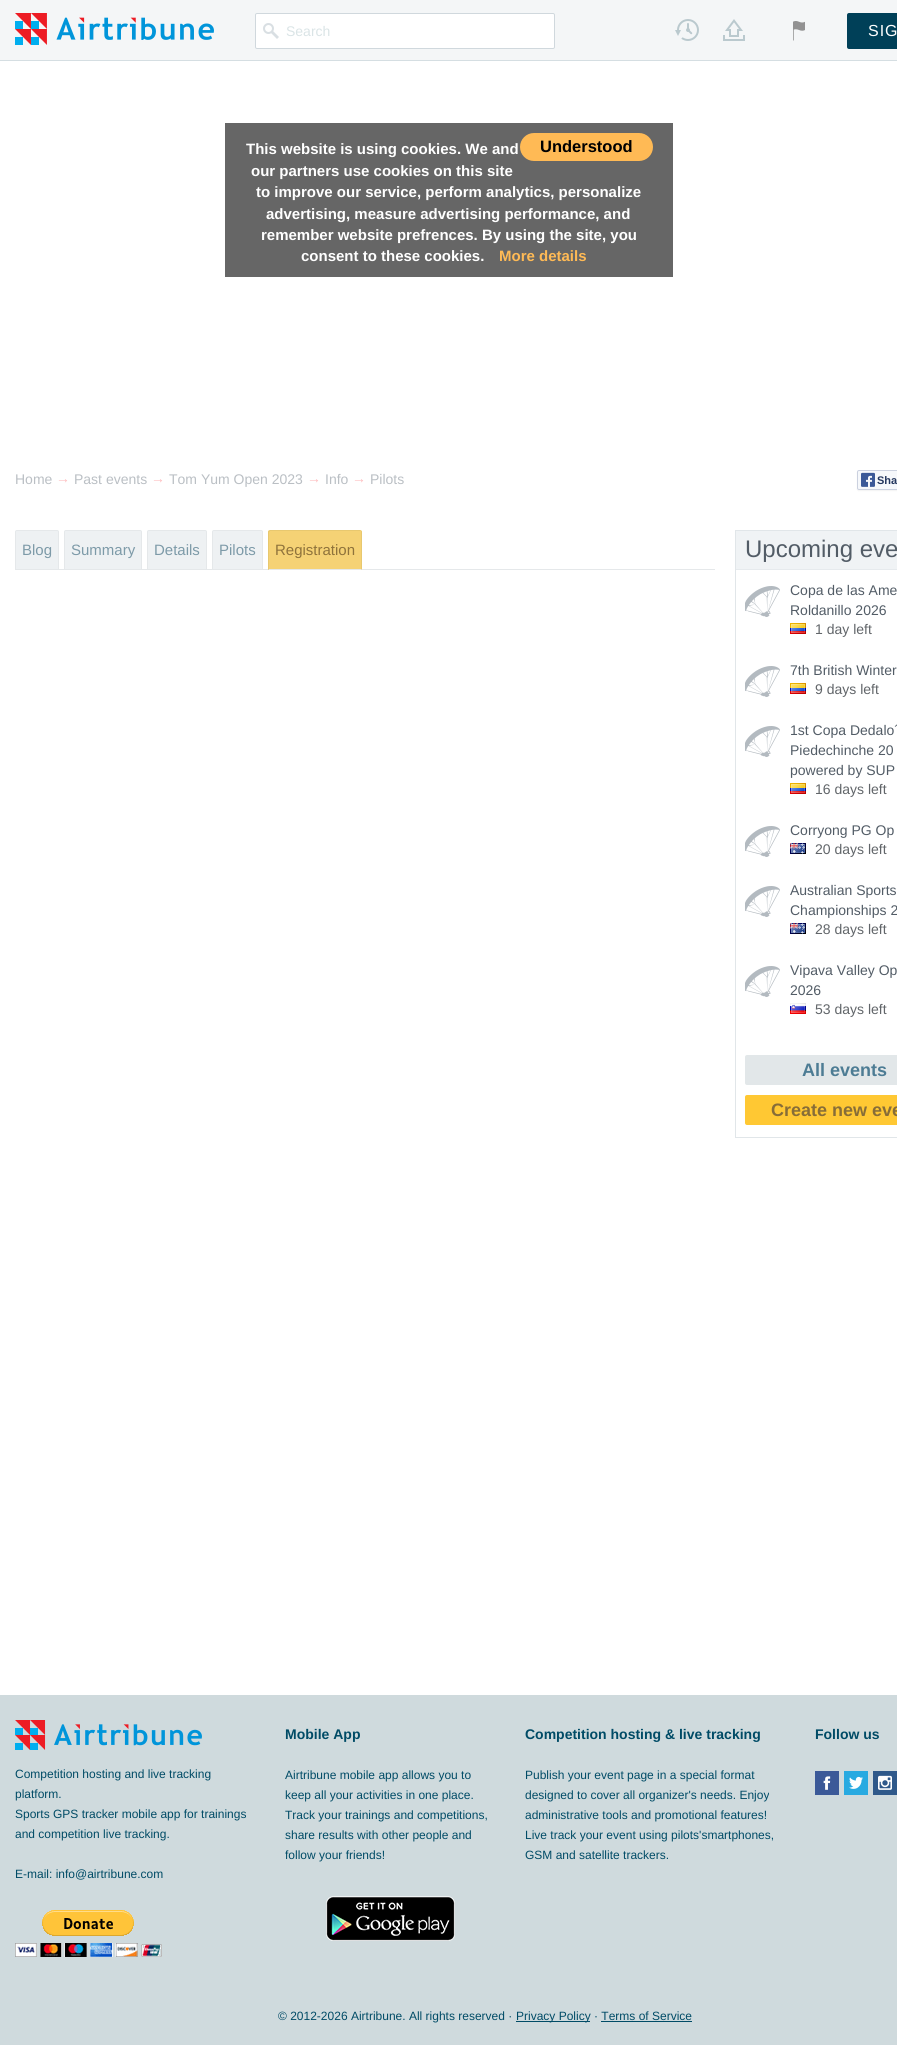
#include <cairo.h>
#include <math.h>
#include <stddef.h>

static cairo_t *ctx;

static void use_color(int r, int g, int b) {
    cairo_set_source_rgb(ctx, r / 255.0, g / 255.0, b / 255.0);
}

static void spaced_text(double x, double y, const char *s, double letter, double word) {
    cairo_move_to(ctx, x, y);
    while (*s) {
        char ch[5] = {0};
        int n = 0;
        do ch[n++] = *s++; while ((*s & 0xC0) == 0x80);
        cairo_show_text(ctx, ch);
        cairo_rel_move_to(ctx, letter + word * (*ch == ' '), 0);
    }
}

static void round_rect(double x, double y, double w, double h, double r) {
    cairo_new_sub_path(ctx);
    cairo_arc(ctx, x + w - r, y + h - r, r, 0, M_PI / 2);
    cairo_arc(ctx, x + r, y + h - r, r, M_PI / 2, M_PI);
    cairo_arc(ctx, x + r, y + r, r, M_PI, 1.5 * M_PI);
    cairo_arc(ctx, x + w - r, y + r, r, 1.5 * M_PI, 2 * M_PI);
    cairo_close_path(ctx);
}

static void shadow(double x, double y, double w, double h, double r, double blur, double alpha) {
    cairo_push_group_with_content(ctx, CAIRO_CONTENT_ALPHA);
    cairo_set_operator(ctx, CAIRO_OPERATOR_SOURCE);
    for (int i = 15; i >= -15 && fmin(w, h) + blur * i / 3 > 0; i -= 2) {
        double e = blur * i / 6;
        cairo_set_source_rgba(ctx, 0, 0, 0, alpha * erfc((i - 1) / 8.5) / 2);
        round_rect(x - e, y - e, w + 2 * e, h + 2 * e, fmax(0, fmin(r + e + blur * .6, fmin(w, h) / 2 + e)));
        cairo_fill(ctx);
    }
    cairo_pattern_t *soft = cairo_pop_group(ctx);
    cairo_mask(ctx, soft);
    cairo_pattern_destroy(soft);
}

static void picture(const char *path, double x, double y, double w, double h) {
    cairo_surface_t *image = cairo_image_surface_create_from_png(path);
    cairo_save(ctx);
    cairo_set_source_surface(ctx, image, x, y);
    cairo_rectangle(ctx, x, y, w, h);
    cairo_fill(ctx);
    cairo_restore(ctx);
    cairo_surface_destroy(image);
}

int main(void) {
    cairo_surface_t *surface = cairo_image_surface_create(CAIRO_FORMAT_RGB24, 897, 2045);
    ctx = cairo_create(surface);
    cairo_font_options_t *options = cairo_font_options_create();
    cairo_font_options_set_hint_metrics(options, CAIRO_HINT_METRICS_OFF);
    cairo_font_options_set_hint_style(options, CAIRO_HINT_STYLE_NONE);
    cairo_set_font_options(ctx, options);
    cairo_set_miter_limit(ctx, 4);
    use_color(255, 255, 255);
    cairo_paint(ctx);
    use_color(213, 222, 226);
    cairo_rectangle(ctx, 0, 60, 897, 1);
    cairo_fill(ctx);
    use_color(244, 246, 247);
    cairo_rectangle(ctx, 0, 0, 897, 60);
    cairo_fill(ctx);
    picture("img1.png", 15, 13, 199, 32);
    use_color(255, 255, 255);
    round_rect(255.5, 13.5, 299, 35, 1.5);
    cairo_fill_preserve(ctx);
    use_color(208, 216, 221);
    cairo_set_line_width(ctx, 1);
    cairo_stroke(ctx);
    picture("img2.png", 263, 23, 16, 16);
    cairo_select_font_face(ctx, "Liberation Sans", CAIRO_FONT_SLANT_NORMAL, CAIRO_FONT_WEIGHT_NORMAL);
    cairo_set_font_size(ctx, 14);
    use_color(218, 228, 230);
    cairo_move_to(ctx, 286, 36);
    cairo_show_text(ctx, "Search");
    picture("img3.png", 675, 19, 24, 22);
    picture("img4.png", 723, 19, 22, 22);
    picture("img5.png", 793, 21, 12, 20);
    use_color(0, 64, 88);
    round_rect(847, 13, 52, 36, 2);
    cairo_fill(ctx);
    cairo_set_font_size(ctx, 16);
    use_color(255, 255, 255);
    spaced_text(868, 36, "SIG", 1, 0);
    use_color(102, 102, 102);
    cairo_rectangle(ctx, 225, 123, 448, 154);
    cairo_fill(ctx);
    use_color(255, 186, 85);
    round_rect(520, 133, 133, 28, 14);
    cairo_fill(ctx);
    cairo_select_font_face(ctx, "Liberation Sans", CAIRO_FONT_SLANT_NORMAL, CAIRO_FONT_WEIGHT_BOLD);
    cairo_set_font_size(ctx, 16.5);
    use_color(0, 0, 0);
    cairo_move_to(ctx, 540, 152);
    cairo_show_text(ctx, "Understood");
    cairo_set_font_size(ctx, 15);
    use_color(255, 255, 255);
    cairo_move_to(ctx, 246, 154);
    cairo_show_text(ctx, "This website is using cookies. We and");
    cairo_move_to(ctx, 251, 176);
    cairo_show_text(ctx, "our partners use cookies on this site");
    cairo_move_to(ctx, 256, 197);
    cairo_show_text(ctx, "to improve our service, perform analytics, personalize");
    cairo_move_to(ctx, 266, 219);
    cairo_show_text(ctx, "advertising, measure advertising performance, and");
    cairo_move_to(ctx, 261, 240);
    cairo_show_text(ctx, "remember website prefrences. By using the site, you");
    cairo_move_to(ctx, 301, 261);
    cairo_show_text(ctx, "consent to these cookies.");
    use_color(255, 186, 85);
    cairo_move_to(ctx, 499, 261);
    cairo_show_text(ctx, "More details");
    cairo_select_font_face(ctx, "Liberation Sans", CAIRO_FONT_SLANT_NORMAL, CAIRO_FONT_WEIGHT_NORMAL);
    cairo_set_font_size(ctx, 14);
    use_color(186, 191, 196);
    cairo_move_to(ctx, 15, 484);
    cairo_show_text(ctx, "Home");
    use_color(254, 190, 192);
    cairo_move_to(ctx, 56, 483);
    cairo_show_text(ctx, "→");
    use_color(186, 191, 196);
    cairo_move_to(ctx, 74, 484);
    cairo_show_text(ctx, "Past events");
    use_color(254, 190, 192);
    cairo_move_to(ctx, 151, 483);
    cairo_show_text(ctx, "→");
    use_color(186, 191, 196);
    cairo_move_to(ctx, 169, 484);
    cairo_show_text(ctx, "Tom Yum Open 2023");
    use_color(254, 190, 192);
    cairo_move_to(ctx, 307, 483);
    cairo_show_text(ctx, "→");
    use_color(186, 191, 196);
    cairo_move_to(ctx, 325, 484);
    cairo_show_text(ctx, "Info");
    use_color(254, 190, 192);
    cairo_move_to(ctx, 352, 483);
    cairo_show_text(ctx, "→");
    use_color(186, 191, 196);
    cairo_move_to(ctx, 370, 484);
    cairo_show_text(ctx, "Pilots");
    use_color(0, 0, 0);
    shadow(857, 471, 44, 20, 2, 0.5, 0.05);
    use_color(246, 248, 251);
    round_rect(857.5, 470.5, 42, 19, 1.5);
    cairo_fill_preserve(ctx);
    use_color(203, 209, 223);
    cairo_stroke(ctx);
    picture("img6.png", 861, 472, 14, 15);
    cairo_select_font_face(ctx, "Liberation Sans", CAIRO_FONT_SLANT_NORMAL, CAIRO_FONT_WEIGHT_BOLD);
    cairo_set_font_size(ctx, 11);
    use_color(36, 55, 94);
    cairo_move_to(ctx, 877, 484);
    cairo_show_text(ctx, "Sha");
    use_color(229, 232, 234);
    cairo_rectangle(ctx, 59, 569, 656, 1);
    cairo_fill(ctx);
    use_color(238, 241, 243);
    cairo_new_path(ctx);
    cairo_move_to(ctx, 17, 530.5);
    cairo_line_to(ctx, 57, 530.5);
    cairo_curve_to(ctx, 58, 530.5, 58.5, 531, 58.5, 532);
    cairo_line_to(ctx, 58.5, 569.5);
    cairo_line_to(ctx, 15.5, 569.5);
    cairo_line_to(ctx, 15.5, 532);
    cairo_curve_to(ctx, 15.5, 531, 16, 530.5, 17, 530.5);
    cairo_close_path(ctx);
    cairo_fill_preserve(ctx);
    use_color(229, 232, 234);
    cairo_stroke(ctx);
    cairo_select_font_face(ctx, "Liberation Sans", CAIRO_FONT_SLANT_NORMAL, CAIRO_FONT_WEIGHT_NORMAL);
    cairo_set_font_size(ctx, 15);
    use_color(125, 154, 168);
    cairo_move_to(ctx, 22, 555);
    cairo_show_text(ctx, "Blog");
    use_color(238, 241, 243);
    cairo_new_path(ctx);
    cairo_move_to(ctx, 66, 530.5);
    cairo_line_to(ctx, 140, 530.5);
    cairo_curve_to(ctx, 141, 530.5, 141.5, 531, 141.5, 532);
    cairo_line_to(ctx, 141.5, 569.5);
    cairo_line_to(ctx, 64.5, 569.5);
    cairo_line_to(ctx, 64.5, 532);
    cairo_curve_to(ctx, 64.5, 531, 65, 530.5, 66, 530.5);
    cairo_close_path(ctx);
    cairo_fill_preserve(ctx);
    use_color(229, 232, 234);
    cairo_stroke(ctx);
    use_color(125, 154, 168);
    cairo_move_to(ctx, 71, 555);
    cairo_show_text(ctx, "Summary");
    use_color(238, 241, 243);
    cairo_new_path(ctx);
    cairo_move_to(ctx, 149, 530.5);
    cairo_line_to(ctx, 205, 530.5);
    cairo_curve_to(ctx, 206, 530.5, 206.5, 531, 206.5, 532);
    cairo_line_to(ctx, 206.5, 569.5);
    cairo_line_to(ctx, 147.5, 569.5);
    cairo_line_to(ctx, 147.5, 532);
    cairo_curve_to(ctx, 147.5, 531, 148, 530.5, 149, 530.5);
    cairo_close_path(ctx);
    cairo_fill_preserve(ctx);
    use_color(229, 232, 234);
    cairo_stroke(ctx);
    use_color(125, 154, 168);
    cairo_move_to(ctx, 154, 555);
    cairo_show_text(ctx, "Details");
    use_color(238, 241, 243);
    cairo_new_path(ctx);
    cairo_move_to(ctx, 214, 530.5);
    cairo_line_to(ctx, 261, 530.5);
    cairo_curve_to(ctx, 262, 530.5, 262.5, 531, 262.5, 532);
    cairo_line_to(ctx, 262.5, 569.5);
    cairo_line_to(ctx, 212.5, 569.5);
    cairo_line_to(ctx, 212.5, 532);
    cairo_curve_to(ctx, 212.5, 531, 213, 530.5, 214, 530.5);
    cairo_close_path(ctx);
    cairo_fill_preserve(ctx);
    use_color(229, 232, 234);
    cairo_stroke(ctx);
    use_color(125, 154, 168);
    cairo_move_to(ctx, 219, 555);
    cairo_show_text(ctx, "Pilots");
    use_color(245, 210, 117);
    cairo_new_path(ctx);
    cairo_move_to(ctx, 270, 530);
    cairo_line_to(ctx, 360, 530);
    cairo_curve_to(ctx, 361, 530, 362, 531, 362, 532);
    cairo_line_to(ctx, 362, 570);
    cairo_line_to(ctx, 268, 570);
    cairo_line_to(ctx, 268, 532);
    cairo_curve_to(ctx, 268, 531, 269, 530, 270, 530);
    cairo_close_path(ctx);
    cairo_fill(ctx);
    use_color(232, 200, 111);
    cairo_new_path(ctx);
    cairo_move_to(ctx, 270, 530);
    cairo_line_to(ctx, 269, 531);
    cairo_line_to(ctx, 270, 532);
    cairo_line_to(ctx, 270, 531);
    cairo_line_to(ctx, 361, 531);
    cairo_line_to(ctx, 360, 530);
    cairo_close_path(ctx);
    cairo_fill(ctx);
    cairo_new_path(ctx);
    cairo_move_to(ctx, 362, 570);
    cairo_line_to(ctx, 362, 532);
    cairo_line_to(ctx, 361.5, 530.5);
    cairo_line_to(ctx, 361, 531);
    cairo_line_to(ctx, 361, 569);
    cairo_close_path(ctx);
    cairo_fill(ctx);
    use_color(229, 232, 234);
    cairo_new_path(ctx);
    cairo_move_to(ctx, 362, 570);
    cairo_line_to(ctx, 361, 569);
    cairo_line_to(ctx, 269, 569);
    cairo_line_to(ctx, 268, 570);
    cairo_close_path(ctx);
    cairo_fill(ctx);
    use_color(232, 200, 111);
    cairo_new_path(ctx);
    cairo_move_to(ctx, 268, 570);
    cairo_line_to(ctx, 269, 569);
    cairo_line_to(ctx, 269, 532);
    cairo_line_to(ctx, 269.5, 531.5);
    cairo_line_to(ctx, 268.5, 530.5);
    cairo_line_to(ctx, 268, 532);
    cairo_close_path(ctx);
    cairo_fill(ctx);
    use_color(143, 115, 59);
    cairo_move_to(ctx, 275, 555);
    cairo_show_text(ctx, "Registration");
    cairo_rectangle(ctx, 735.5, 530.5, 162, 607);
    use_color(225, 230, 233);
    cairo_stroke(ctx);
    use_color(240, 243, 245);
    cairo_rectangle(ctx, 736, 531, 161, 38);
    cairo_fill(ctx);
    use_color(230, 234, 237);
    cairo_rectangle(ctx, 736, 569, 161, 1);
    cairo_fill(ctx);
    cairo_set_font_size(ctx, 24);
    use_color(82, 92, 102);
    cairo_move_to(ctx, 745, 557);
    cairo_show_text(ctx, "Upcoming eve");
    picture("img7.png", 745, 586, 35, 31);
    cairo_set_font_size(ctx, 14);
    cairo_move_to(ctx, 790, 595);
    cairo_show_text(ctx, "Copa de las Ame");
    cairo_move_to(ctx, 790, 615);
    cairo_show_text(ctx, "Roldanillo 2026");
    picture("img8.png", 790, 623, 16, 11);
    use_color(97, 101, 105);
    cairo_move_to(ctx, 815, 634);
    cairo_show_text(ctx, "1 day left");
    picture("img7.png", 745, 666, 35, 31);
    use_color(82, 92, 102);
    cairo_move_to(ctx, 790, 675);
    cairo_show_text(ctx, "7th British Winter");
    picture("img8.png", 790, 683, 16, 11);
    use_color(97, 101, 105);
    cairo_move_to(ctx, 815, 694);
    cairo_show_text(ctx, "9 days left");
    picture("img7.png", 745, 726, 35, 31);
    use_color(82, 92, 102);
    cairo_move_to(ctx, 790, 735);
    cairo_show_text(ctx, "1st Copa Dedalo´");
    cairo_move_to(ctx, 790, 755);
    cairo_show_text(ctx, "Piedechinche 20");
    cairo_move_to(ctx, 790, 775);
    cairo_show_text(ctx, "powered by SUP");
    picture("img8.png", 790, 783, 16, 11);
    use_color(97, 101, 105);
    cairo_move_to(ctx, 815, 794);
    cairo_show_text(ctx, "16 days left");
    picture("img7.png", 745, 826, 35, 31);
    use_color(82, 92, 102);
    cairo_move_to(ctx, 790, 835);
    cairo_show_text(ctx, "Corryong PG Op");
    picture("img9.png", 790, 843, 16, 11);
    use_color(97, 101, 105);
    cairo_move_to(ctx, 815, 854);
    cairo_show_text(ctx, "20 days left");
    picture("img7.png", 745, 886, 35, 31);
    use_color(82, 92, 102);
    cairo_move_to(ctx, 790, 895);
    cairo_show_text(ctx, "Australian Sports");
    cairo_move_to(ctx, 790, 915);
    cairo_show_text(ctx, "Championships 2");
    picture("img9.png", 790, 923, 16, 11);
    use_color(97, 101, 105);
    cairo_move_to(ctx, 815, 934);
    cairo_show_text(ctx, "28 days left");
    picture("img7.png", 745, 966, 35, 31);
    use_color(82, 92, 102);
    cairo_move_to(ctx, 790, 975);
    cairo_show_text(ctx, "Vipava Valley Op");
    cairo_move_to(ctx, 790, 995);
    cairo_show_text(ctx, "2026");
    picture("img10.png", 790, 1003, 16, 11);
    use_color(97, 101, 105);
    cairo_move_to(ctx, 815, 1014);
    cairo_show_text(ctx, "53 days left");
    use_color(226, 231, 233);
    round_rect(745, 1055, 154, 30, 2);
    cairo_fill(ctx);
    cairo_select_font_face(ctx, "Liberation Sans", CAIRO_FONT_SLANT_NORMAL, CAIRO_FONT_WEIGHT_BOLD);
    cairo_set_font_size(ctx, 18);
    use_color(77, 124, 148);
    cairo_move_to(ctx, 802, 1076);
    cairo_show_text(ctx, "All events");
    use_color(255, 200, 51);
    round_rect(745, 1095, 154, 30, 2);
    cairo_fill(ctx);
    use_color(135, 109, 56);
    cairo_move_to(ctx, 771, 1116);
    cairo_show_text(ctx, "Create new eve");
    use_color(207, 218, 221);
    cairo_rectangle(ctx, 0, 1695, 897, 350);
    cairo_fill(ctx);
    cairo_set_font_size(ctx, 14);
    use_color(0, 75, 102);
    cairo_move_to(ctx, 285, 1739);
    cairo_show_text(ctx, "Mobile App");
    cairo_select_font_face(ctx, "Liberation Sans", CAIRO_FONT_SLANT_NORMAL, CAIRO_FONT_WEIGHT_NORMAL);
    cairo_set_font_size(ctx, 12);
    cairo_move_to(ctx, 285, 1779);
    cairo_show_text(ctx, "Airtribune mobile app allows you to");
    cairo_move_to(ctx, 285, 1799);
    cairo_show_text(ctx, "keep all your activities in one place.");
    cairo_move_to(ctx, 285, 1819);
    cairo_show_text(ctx, "Track your trainings and competitions,");
    cairo_move_to(ctx, 285, 1839);
    cairo_show_text(ctx, "share results with other people and");
    cairo_move_to(ctx, 285, 1859);
    cairo_show_text(ctx, "follow your friends!");
    picture("img11.png", 326, 1896, 129, 45);
    cairo_select_font_face(ctx, "Liberation Sans", CAIRO_FONT_SLANT_NORMAL, CAIRO_FONT_WEIGHT_BOLD);
    cairo_set_font_size(ctx, 14);
    cairo_move_to(ctx, 525, 1739);
    cairo_show_text(ctx, "Competition hosting & live tracking");
    cairo_select_font_face(ctx, "Liberation Sans", CAIRO_FONT_SLANT_NORMAL, CAIRO_FONT_WEIGHT_NORMAL);
    cairo_set_font_size(ctx, 12);
    cairo_move_to(ctx, 525, 1779);
    cairo_show_text(ctx, "Publish your event page in a special format");
    cairo_move_to(ctx, 525, 1799);
    cairo_show_text(ctx, "designed to cover all organizer's needs. Enjoy");
    cairo_move_to(ctx, 525, 1819);
    cairo_show_text(ctx, "administrative tools and promotional features!");
    cairo_move_to(ctx, 525, 1839);
    cairo_show_text(ctx, "Live track your event using pilots'smartphones,");
    cairo_move_to(ctx, 525, 1859);
    cairo_show_text(ctx, "GSM and satellite trackers.");
    cairo_select_font_face(ctx, "Liberation Sans", CAIRO_FONT_SLANT_NORMAL, CAIRO_FONT_WEIGHT_BOLD);
    cairo_set_font_size(ctx, 14);
    cairo_move_to(ctx, 815, 1739);
    cairo_show_text(ctx, "Follow us");
    use_color(59, 89, 152);
    cairo_rectangle(ctx, 815, 1771, 24, 24);
    cairo_fill(ctx);
    picture("img12.png", 823, 1776, 8, 14);
    use_color(40, 170, 225);
    cairo_rectangle(ctx, 844, 1771, 24, 24);
    cairo_fill(ctx);
    picture("img13.png", 849, 1776, 14, 13);
    use_color(47, 89, 138);
    cairo_rectangle(ctx, 873, 1771, 24, 24);
    cairo_fill(ctx);
    picture("img14.png", 878, 1775, 14, 15);
    picture("img15.png", 15, 1720, 187, 30);
    cairo_select_font_face(ctx, "Liberation Sans", CAIRO_FONT_SLANT_NORMAL, CAIRO_FONT_WEIGHT_NORMAL);
    cairo_set_font_size(ctx, 12);
    use_color(0, 75, 102);
    cairo_move_to(ctx, 15, 1778);
    cairo_show_text(ctx, "Competition hosting and live tracking");
    cairo_move_to(ctx, 15, 1798);
    cairo_show_text(ctx, "platform.");
    cairo_move_to(ctx, 15, 1818);
    cairo_show_text(ctx, "Sports GPS tracker mobile app for trainings");
    cairo_move_to(ctx, 15, 1838);
    cairo_show_text(ctx, "and competition live tracking.");
    cairo_move_to(ctx, 15, 1878);
    cairo_show_text(ctx, "E-mail: info@airtribune.com");
    picture("img16.png", 15, 1910, 147, 47);
    cairo_move_to(ctx, 278, 2020);
    cairo_show_text(ctx, "© 2012-2026 Airtribune. All rights reserved ·");
    cairo_rectangle(ctx, 516, 2021, 74, 1);
    cairo_fill(ctx);
    cairo_move_to(ctx, 516, 2020);
    cairo_show_text(ctx, "Privacy Policy · Terms of Service");
    cairo_rectangle(ctx, 601, 2021, 91, 1);
    cairo_fill(ctx);
    cairo_surface_write_to_png(surface, "result.png");
    cairo_font_options_destroy(options);
    cairo_destroy(ctx);
    cairo_surface_destroy(surface);
    return 0;
}
